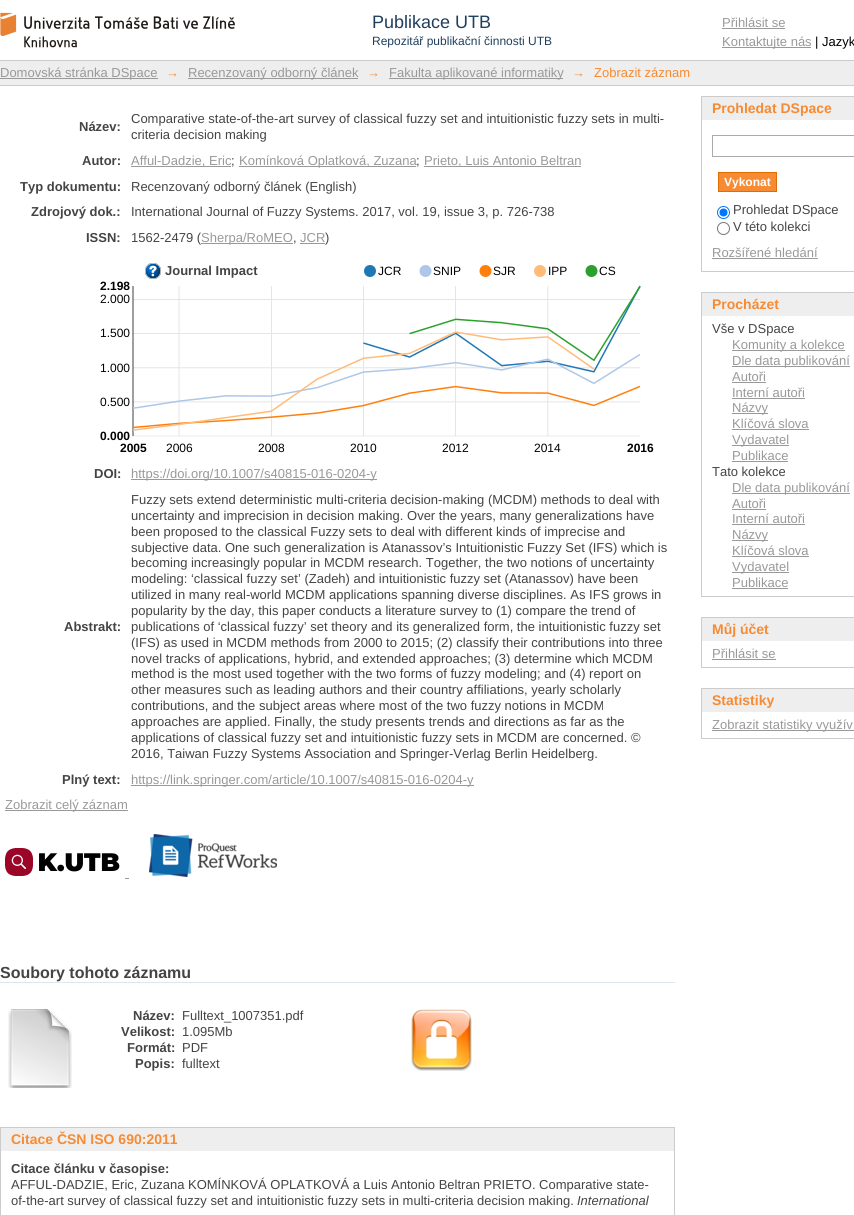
#include <cairo.h>
#include <math.h>
#include <stddef.h>

static cairo_t *ctx;

static void use_color(int r, int g, int b) {
    cairo_set_source_rgb(ctx, r / 255.0, g / 255.0, b / 255.0);
}

static void picture(const char *path, double x, double y, double w, double h) {
    cairo_surface_t *image = cairo_image_surface_create_from_png(path);
    cairo_save(ctx);
    cairo_set_source_surface(ctx, image, x, y);
    cairo_rectangle(ctx, x, y, w, h);
    cairo_fill(ctx);
    cairo_restore(ctx);
    cairo_surface_destroy(image);
}

int main(void) {
    cairo_surface_t *surface = cairo_image_surface_create(CAIRO_FORMAT_RGB24, 854, 1215);
    ctx = cairo_create(surface);
    cairo_font_options_t *options = cairo_font_options_create();
    cairo_font_options_set_hint_metrics(options, CAIRO_HINT_METRICS_OFF);
    cairo_font_options_set_hint_style(options, CAIRO_HINT_STYLE_NONE);
    cairo_set_font_options(ctx, options);
    cairo_set_miter_limit(ctx, 4);
    use_color(255, 255, 255);
    cairo_paint(ctx);
    picture("img1.png", 0, 12, 235, 36);
    cairo_select_font_face(ctx, "Liberation Sans", CAIRO_FONT_SLANT_NORMAL, CAIRO_FONT_WEIGHT_NORMAL);
    cairo_set_font_size(ctx, 18);
    use_color(31, 63, 94);
    cairo_move_to(ctx, 372, 28);
    cairo_show_text(ctx, "Publikace UTB");
    cairo_set_font_size(ctx, 12);
    cairo_move_to(ctx, 372, 45);
    cairo_show_text(ctx, "Repozitář publikační činnosti UTB");
    cairo_set_font_size(ctx, 13);
    use_color(153, 153, 153);
    cairo_move_to(ctx, 722, 27);
    cairo_show_text(ctx, "Přihlásit se");
    cairo_rectangle(ctx, 722, 28, 63, 1);
    cairo_fill(ctx);
    cairo_rectangle(ctx, 722, 47, 89, 1);
    cairo_fill(ctx);
    cairo_move_to(ctx, 722, 46);
    cairo_show_text(ctx, "Kontaktujte nás");
    use_color(0, 0, 0);
    cairo_move_to(ctx, 815, 46);
    cairo_show_text(ctx, "| Jazyk");
    use_color(238, 238, 238);
    cairo_rectangle(ctx, 0, 61, 854, 24);
    cairo_fill(ctx);
    use_color(204, 204, 204);
    cairo_rectangle(ctx, 0, 60, 854, 1);
    cairo_fill(ctx);
    cairo_rectangle(ctx, 0, 85, 854, 1);
    cairo_fill(ctx);
    use_color(153, 153, 153);
    cairo_rectangle(ctx, 0, 78, 158, 1);
    cairo_fill(ctx);
    cairo_move_to(ctx, 0, 77);
    cairo_show_text(ctx, "Domovská stránka DSpace");
    use_color(246, 139, 51);
    cairo_move_to(ctx, 166, 77);
    cairo_show_text(ctx, "→");
    use_color(153, 153, 153);
    cairo_rectangle(ctx, 188, 78, 170, 1);
    cairo_fill(ctx);
    cairo_move_to(ctx, 188, 77);
    cairo_show_text(ctx, "Recenzovaný odborný článek");
    use_color(246, 139, 51);
    cairo_move_to(ctx, 367, 77);
    cairo_show_text(ctx, "→");
    use_color(153, 153, 153);
    cairo_rectangle(ctx, 389, 78, 174, 1);
    cairo_fill(ctx);
    cairo_move_to(ctx, 389, 77);
    cairo_show_text(ctx, "Fakulta aplikované informatiky");
    use_color(246, 139, 51);
    cairo_move_to(ctx, 572, 77);
    cairo_show_text(ctx, "→");
    cairo_move_to(ctx, 594, 77);
    cairo_show_text(ctx, "Zobrazit záznam");
    cairo_select_font_face(ctx, "Liberation Sans", CAIRO_FONT_SLANT_NORMAL, CAIRO_FONT_WEIGHT_BOLD);
    use_color(68, 68, 68);
    cairo_move_to(ctx, 79, 131);
    cairo_show_text(ctx, "Název:");
    cairo_select_font_face(ctx, "Liberation Sans", CAIRO_FONT_SLANT_NORMAL, CAIRO_FONT_WEIGHT_NORMAL);
    cairo_move_to(ctx, 131, 123);
    cairo_show_text(ctx, "Comparative state-of-the-art survey of classical fuzzy set and intuitionistic fuzzy sets in multi-");
    cairo_move_to(ctx, 131, 139);
    cairo_show_text(ctx, "criteria decision making");
    cairo_select_font_face(ctx, "Liberation Sans", CAIRO_FONT_SLANT_NORMAL, CAIRO_FONT_WEIGHT_BOLD);
    cairo_move_to(ctx, 82, 165);
    cairo_show_text(ctx, "Autor:");
    use_color(153, 153, 153);
    cairo_rectangle(ctx, 131, 166, 100, 1);
    cairo_fill(ctx);
    cairo_select_font_face(ctx, "Liberation Sans", CAIRO_FONT_SLANT_NORMAL, CAIRO_FONT_WEIGHT_NORMAL);
    cairo_move_to(ctx, 131, 165);
    cairo_show_text(ctx, "Afful-Dadzie, Eric");
    use_color(68, 68, 68);
    cairo_move_to(ctx, 231, 165);
    cairo_show_text(ctx, ";");
    use_color(153, 153, 153);
    cairo_rectangle(ctx, 239, 166, 177, 1);
    cairo_fill(ctx);
    cairo_move_to(ctx, 239, 165);
    cairo_show_text(ctx, "Komínková Oplatková, Zuzana");
    use_color(68, 68, 68);
    cairo_move_to(ctx, 416, 165);
    cairo_show_text(ctx, ";");
    use_color(153, 153, 153);
    cairo_rectangle(ctx, 424, 166, 157, 1);
    cairo_fill(ctx);
    cairo_move_to(ctx, 424, 165);
    cairo_show_text(ctx, "Prieto, Luis Antonio Beltran");
    cairo_select_font_face(ctx, "Liberation Sans", CAIRO_FONT_SLANT_NORMAL, CAIRO_FONT_WEIGHT_BOLD);
    use_color(68, 68, 68);
    cairo_move_to(ctx, 20, 191);
    cairo_show_text(ctx, "Typ dokumentu:");
    cairo_select_font_face(ctx, "Liberation Sans", CAIRO_FONT_SLANT_NORMAL, CAIRO_FONT_WEIGHT_NORMAL);
    cairo_move_to(ctx, 131, 191);
    cairo_show_text(ctx, "Recenzovaný odborný článek (English)");
    cairo_select_font_face(ctx, "Liberation Sans", CAIRO_FONT_SLANT_NORMAL, CAIRO_FONT_WEIGHT_BOLD);
    cairo_move_to(ctx, 31, 216);
    cairo_show_text(ctx, "Zdrojový dok.:");
    cairo_select_font_face(ctx, "Liberation Sans", CAIRO_FONT_SLANT_NORMAL, CAIRO_FONT_WEIGHT_NORMAL);
    cairo_move_to(ctx, 131, 216);
    cairo_show_text(ctx, "International Journal of Fuzzy Systems. 2017, vol. 19, issue 3, p. 726-738");
    cairo_select_font_face(ctx, "Liberation Sans", CAIRO_FONT_SLANT_NORMAL, CAIRO_FONT_WEIGHT_BOLD);
    cairo_move_to(ctx, 86, 242);
    cairo_show_text(ctx, "ISSN:");
    cairo_select_font_face(ctx, "Liberation Sans", CAIRO_FONT_SLANT_NORMAL, CAIRO_FONT_WEIGHT_NORMAL);
    cairo_move_to(ctx, 131, 242);
    cairo_show_text(ctx, "1562-2479 (");
    use_color(153, 153, 153);
    cairo_rectangle(ctx, 201, 243, 92, 1);
    cairo_fill(ctx);
    cairo_move_to(ctx, 201, 242);
    cairo_show_text(ctx, "Sherpa/RoMEO");
    use_color(68, 68, 68);
    cairo_move_to(ctx, 293, 242);
    cairo_show_text(ctx, ",");
    use_color(153, 153, 153);
    cairo_move_to(ctx, 300, 242);
    cairo_show_text(ctx, "JCR");
    cairo_rectangle(ctx, 300, 243, 25, 1);
    cairo_fill(ctx);
    use_color(68, 68, 68);
    cairo_move_to(ctx, 325, 242);
    cairo_show_text(ctx, ")");
    picture("img3.png", 132, 265, 509, 172);
    picture("img2.png", 145, 263, 16, 16);
    cairo_select_font_face(ctx, "Liberation Sans", CAIRO_FONT_SLANT_NORMAL, CAIRO_FONT_WEIGHT_BOLD);
    cairo_move_to(ctx, 165, 275);
    cairo_show_text(ctx, "Journal Impact");
    cairo_select_font_face(ctx, "Liberation Sans", CAIRO_FONT_SLANT_NORMAL, CAIRO_FONT_WEIGHT_NORMAL);
    cairo_set_font_size(ctx, 12);
    use_color(0, 0, 0);
    cairo_move_to(ctx, 378, 275);
    cairo_show_text(ctx, "JCR");
    cairo_move_to(ctx, 433, 275);
    cairo_show_text(ctx, "SNIP");
    cairo_move_to(ctx, 493, 275);
    cairo_show_text(ctx, "SJR");
    cairo_move_to(ctx, 548, 275);
    cairo_show_text(ctx, "IPP");
    cairo_move_to(ctx, 599, 275);
    cairo_show_text(ctx, "CS");
    cairo_select_font_face(ctx, "Liberation Sans", CAIRO_FONT_SLANT_NORMAL, CAIRO_FONT_WEIGHT_BOLD);
    cairo_move_to(ctx, 100, 290);
    cairo_show_text(ctx, "2.198");
    cairo_select_font_face(ctx, "Liberation Sans", CAIRO_FONT_SLANT_NORMAL, CAIRO_FONT_WEIGHT_NORMAL);
    cairo_move_to(ctx, 100, 303);
    cairo_show_text(ctx, "2.000");
    cairo_move_to(ctx, 100, 337);
    cairo_show_text(ctx, "1.500");
    cairo_move_to(ctx, 100, 372);
    cairo_show_text(ctx, "1.000");
    cairo_move_to(ctx, 100, 406);
    cairo_show_text(ctx, "0.500");
    cairo_select_font_face(ctx, "Liberation Sans", CAIRO_FONT_SLANT_NORMAL, CAIRO_FONT_WEIGHT_BOLD);
    cairo_move_to(ctx, 100, 440);
    cairo_show_text(ctx, "0.000");
    cairo_move_to(ctx, 120, 452);
    cairo_show_text(ctx, "2005");
    cairo_select_font_face(ctx, "Liberation Sans", CAIRO_FONT_SLANT_NORMAL, CAIRO_FONT_WEIGHT_NORMAL);
    cairo_move_to(ctx, 166, 452);
    cairo_show_text(ctx, "2006");
    cairo_move_to(ctx, 258, 452);
    cairo_show_text(ctx, "2008");
    cairo_move_to(ctx, 350, 452);
    cairo_show_text(ctx, "2010");
    cairo_move_to(ctx, 442, 452);
    cairo_show_text(ctx, "2012");
    cairo_move_to(ctx, 534, 452);
    cairo_show_text(ctx, "2014");
    cairo_select_font_face(ctx, "Liberation Sans", CAIRO_FONT_SLANT_NORMAL, CAIRO_FONT_WEIGHT_BOLD);
    cairo_move_to(ctx, 627, 452);
    cairo_show_text(ctx, "2016");
    cairo_set_font_size(ctx, 13);
    use_color(68, 68, 68);
    cairo_move_to(ctx, 94, 478);
    cairo_show_text(ctx, "DOI:");
    use_color(153, 153, 153);
    cairo_rectangle(ctx, 131, 479, 246, 1);
    cairo_fill(ctx);
    cairo_select_font_face(ctx, "Liberation Sans", CAIRO_FONT_SLANT_NORMAL, CAIRO_FONT_WEIGHT_NORMAL);
    cairo_move_to(ctx, 131, 478);
    cairo_show_text(ctx, "https://doi.org/10.1007/s40815-016-0204-y");
    cairo_select_font_face(ctx, "Liberation Sans", CAIRO_FONT_SLANT_NORMAL, CAIRO_FONT_WEIGHT_BOLD);
    use_color(68, 68, 68);
    cairo_move_to(ctx, 64, 631);
    cairo_show_text(ctx, "Abstrakt:");
    cairo_select_font_face(ctx, "Liberation Sans", CAIRO_FONT_SLANT_NORMAL, CAIRO_FONT_WEIGHT_NORMAL);
    cairo_move_to(ctx, 131, 504);
    cairo_show_text(ctx, "Fuzzy sets extend deterministic multi-criteria decision-making (MCDM) methods to deal with");
    cairo_move_to(ctx, 131, 520);
    cairo_show_text(ctx, "uncertainty and imprecision in decision making. Over the years, many generalizations have");
    cairo_move_to(ctx, 131, 536);
    cairo_show_text(ctx, "been proposed to the classical Fuzzy sets to deal with different kinds of imprecise and");
    cairo_move_to(ctx, 131, 552);
    cairo_show_text(ctx, "subjective data. One such generalization is Atanassov’s Intuitionistic Fuzzy Set (IFS) which is");
    cairo_move_to(ctx, 131, 567);
    cairo_show_text(ctx, "becoming increasingly popular in MCDM research. Together, the two notions of uncertainty");
    cairo_move_to(ctx, 131, 583);
    cairo_show_text(ctx, "modeling: ‘classical fuzzy set’ (Zadeh) and intuitionistic fuzzy set (Atanassov) have been");
    cairo_move_to(ctx, 131, 599);
    cairo_show_text(ctx, "utilized in many real-world MCDM applications spanning diverse disciplines. As IFS grows in");
    cairo_move_to(ctx, 131, 615);
    cairo_show_text(ctx, "popularity by the day, this paper conducts a literature survey to (1) compare the trend of");
    cairo_move_to(ctx, 131, 631);
    cairo_show_text(ctx, "publications of ‘classical fuzzy’ set theory and its generalized form, the intuitionistic fuzzy set");
    cairo_move_to(ctx, 131, 647);
    cairo_show_text(ctx, "(IFS) as used in MCDM methods from 2000 to 2015; (2) classify their contributions into three");
    cairo_move_to(ctx, 131, 663);
    cairo_show_text(ctx, "novel tracks of applications, hybrid, and extended approaches; (3) determine which MCDM");
    cairo_move_to(ctx, 131, 678);
    cairo_show_text(ctx, "method is the most used together with the two forms of fuzzy modeling; and (4) report on");
    cairo_move_to(ctx, 131, 694);
    cairo_show_text(ctx, "other measures such as leading authors and their country affiliations, yearly scholarly");
    cairo_move_to(ctx, 131, 710);
    cairo_show_text(ctx, "contributions, and the subject areas where most of the two fuzzy notions in MCDM");
    cairo_move_to(ctx, 131, 726);
    cairo_show_text(ctx, "approaches are applied. Finally, the study presents trends and directions as far as the");
    cairo_move_to(ctx, 131, 742);
    cairo_show_text(ctx, "applications of classical fuzzy set and intuitionistic fuzzy sets in MCDM are concerned. ©");
    cairo_move_to(ctx, 131, 758);
    cairo_show_text(ctx, "2016, Taiwan Fuzzy Systems Association and Springer-Verlag Berlin Heidelberg.");
    cairo_select_font_face(ctx, "Liberation Sans", CAIRO_FONT_SLANT_NORMAL, CAIRO_FONT_WEIGHT_BOLD);
    cairo_move_to(ctx, 62, 784);
    cairo_show_text(ctx, "Plný text:");
    use_color(153, 153, 153);
    cairo_rectangle(ctx, 131, 785, 343, 1);
    cairo_fill(ctx);
    cairo_select_font_face(ctx, "Liberation Sans", CAIRO_FONT_SLANT_NORMAL, CAIRO_FONT_WEIGHT_NORMAL);
    cairo_move_to(ctx, 131, 784);
    cairo_show_text(ctx, "https://link.springer.com/article/10.1007/s40815-016-0204-y");
    cairo_rectangle(ctx, 5, 810, 123, 1);
    cairo_fill(ctx);
    cairo_move_to(ctx, 5, 809);
    cairo_show_text(ctx, "Zobrazit celý záznam");
    picture("img4.png", 5, 848, 115, 28);
    picture("img5.png", 149, 834, 128, 43);
    cairo_rectangle(ctx, 125, 878, 4, 1);
    cairo_fill(ctx);
    use_color(216, 232, 235);
    cairo_rectangle(ctx, 0, 982, 675, 1);
    cairo_fill(ctx);
    cairo_select_font_face(ctx, "Liberation Sans", CAIRO_FONT_SLANT_NORMAL, CAIRO_FONT_WEIGHT_BOLD);
    cairo_set_font_size(ctx, 16);
    use_color(68, 68, 68);
    cairo_move_to(ctx, 0, 978);
    cairo_show_text(ctx, "Soubory tohoto záznamu");
    picture("img6.png", 8, 1009, 64, 79);
    cairo_set_font_size(ctx, 13);
    cairo_move_to(ctx, 133, 1020);
    cairo_show_text(ctx, "Název:");
    cairo_select_font_face(ctx, "Liberation Sans", CAIRO_FONT_SLANT_NORMAL, CAIRO_FONT_WEIGHT_NORMAL);
    cairo_move_to(ctx, 182, 1020);
    cairo_show_text(ctx, "Fulltext_1007351.pdf");
    cairo_select_font_face(ctx, "Liberation Sans", CAIRO_FONT_SLANT_NORMAL, CAIRO_FONT_WEIGHT_BOLD);
    cairo_move_to(ctx, 121, 1036);
    cairo_show_text(ctx, "Velikost:");
    cairo_select_font_face(ctx, "Liberation Sans", CAIRO_FONT_SLANT_NORMAL, CAIRO_FONT_WEIGHT_NORMAL);
    cairo_move_to(ctx, 182, 1036);
    cairo_show_text(ctx, "1.095Mb");
    cairo_select_font_face(ctx, "Liberation Sans", CAIRO_FONT_SLANT_NORMAL, CAIRO_FONT_WEIGHT_BOLD);
    cairo_move_to(ctx, 127, 1052);
    cairo_show_text(ctx, "Formát:");
    cairo_select_font_face(ctx, "Liberation Sans", CAIRO_FONT_SLANT_NORMAL, CAIRO_FONT_WEIGHT_NORMAL);
    cairo_move_to(ctx, 182, 1052);
    cairo_show_text(ctx, "PDF");
    cairo_select_font_face(ctx, "Liberation Sans", CAIRO_FONT_SLANT_NORMAL, CAIRO_FONT_WEIGHT_BOLD);
    cairo_move_to(ctx, 135, 1068);
    cairo_show_text(ctx, "Popis:");
    cairo_select_font_face(ctx, "Liberation Sans", CAIRO_FONT_SLANT_NORMAL, CAIRO_FONT_WEIGHT_NORMAL);
    cairo_move_to(ctx, 182, 1068);
    cairo_show_text(ctx, "fulltext");
    picture("img7.png", 411, 1009, 61, 62);
    use_color(238, 238, 238);
    cairo_rectangle(ctx, 1, 1128, 673, 23);
    cairo_fill(ctx);
    use_color(204, 204, 204);
    cairo_rectangle(ctx, 0, 1127, 675, 1);
    cairo_fill(ctx);
    cairo_rectangle(ctx, 674, 1127, 1, 88);
    cairo_fill(ctx);
    cairo_rectangle(ctx, 0, 1127, 1, 88);
    cairo_fill(ctx);
    cairo_select_font_face(ctx, "Liberation Sans", CAIRO_FONT_SLANT_NORMAL, CAIRO_FONT_WEIGHT_BOLD);
    cairo_set_font_size(ctx, 14);
    use_color(246, 139, 51);
    cairo_move_to(ctx, 11, 1144);
    cairo_show_text(ctx, "Citace ČSN ISO 690:2011");
    cairo_set_font_size(ctx, 13);
    use_color(68, 68, 68);
    cairo_move_to(ctx, 11, 1173);
    cairo_show_text(ctx, "Citace článku v časopise:");
    cairo_select_font_face(ctx, "Liberation Sans", CAIRO_FONT_SLANT_NORMAL, CAIRO_FONT_WEIGHT_NORMAL);
    cairo_move_to(ctx, 11, 1189);
    cairo_show_text(ctx, "AFFUL-DADZIE, Eric, Zuzana KOMÍNKOVÁ OPLATKOVÁ a Luis Antonio Beltran PRIETO. Comparative state-");
    cairo_move_to(ctx, 11, 1205);
    cairo_show_text(ctx, "of-the-art survey of classical fuzzy set and intuitionistic fuzzy sets in multi-criteria decision making.");
    cairo_select_font_face(ctx, "Liberation Sans", CAIRO_FONT_SLANT_ITALIC, CAIRO_FONT_WEIGHT_NORMAL);
    cairo_move_to(ctx, 577, 1205);
    cairo_show_text(ctx, "International");
    use_color(238, 238, 238);
    cairo_rectangle(ctx, 702, 97, 152, 23);
    cairo_fill(ctx);
    use_color(204, 204, 204);
    cairo_rectangle(ctx, 701, 96, 153, 1);
    cairo_fill(ctx);
    cairo_rectangle(ctx, 701, 96, 1, 24);
    cairo_fill(ctx);
    cairo_select_font_face(ctx, "Liberation Sans", CAIRO_FONT_SLANT_NORMAL, CAIRO_FONT_WEIGHT_BOLD);
    cairo_set_font_size(ctx, 14);
    use_color(246, 139, 51);
    cairo_move_to(ctx, 712, 113);
    cairo_show_text(ctx, "Prohledat DSpace");
    use_color(204, 204, 204);
    cairo_rectangle(ctx, 701, 271, 153, 1);
    cairo_fill(ctx);
    cairo_rectangle(ctx, 701, 120, 1, 152);
    cairo_fill(ctx);
    cairo_rectangle(ctx, 712.5, 135.5, 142, 21);
    use_color(170, 170, 170);
    cairo_set_line_width(ctx, 1);
    cairo_stroke(ctx);
    use_color(246, 139, 51);
    cairo_rectangle(ctx, 718.5, 172.5, 58, 19);
    cairo_fill_preserve(ctx);
    use_color(223, 110, 0);
    cairo_stroke(ctx);
    cairo_set_font_size(ctx, 12);
    use_color(255, 255, 255);
    cairo_move_to(ctx, 724, 186);
    cairo_show_text(ctx, "Vykonat");
    cairo_new_path(ctx);
    cairo_arc(ctx, 723.5, 212.5, 6, 0, 2 * M_PI);
    use_color(0, 117, 255);
    cairo_stroke(ctx);
    cairo_arc(ctx, 723.5, 212.5, 4, 0, 2 * M_PI);
    cairo_fill(ctx);
    cairo_select_font_face(ctx, "Liberation Sans", CAIRO_FONT_SLANT_NORMAL, CAIRO_FONT_WEIGHT_NORMAL);
    cairo_set_font_size(ctx, 13);
    use_color(68, 68, 68);
    cairo_move_to(ctx, 733, 214);
    cairo_show_text(ctx, "Prohledat DSpace");
    cairo_new_path(ctx);
    cairo_arc(ctx, 723.5, 228.5, 6, 0, 2 * M_PI);
    use_color(118, 118, 118);
    cairo_stroke(ctx);
    use_color(68, 68, 68);
    cairo_move_to(ctx, 733, 231);
    cairo_show_text(ctx, "V této kolekci");
    use_color(153, 153, 153);
    cairo_move_to(ctx, 712, 257);
    cairo_show_text(ctx, "Rozšířené hledání");
    cairo_rectangle(ctx, 712, 258, 106, 1);
    cairo_fill(ctx);
    use_color(238, 238, 238);
    cairo_rectangle(ctx, 702, 293, 152, 23);
    cairo_fill(ctx);
    use_color(204, 204, 204);
    cairo_rectangle(ctx, 701, 292, 153, 1);
    cairo_fill(ctx);
    cairo_rectangle(ctx, 701, 292, 1, 24);
    cairo_fill(ctx);
    cairo_select_font_face(ctx, "Liberation Sans", CAIRO_FONT_SLANT_NORMAL, CAIRO_FONT_WEIGHT_BOLD);
    cairo_set_font_size(ctx, 14);
    use_color(246, 139, 51);
    cairo_move_to(ctx, 712, 309);
    cairo_show_text(ctx, "Procházet");
    use_color(204, 204, 204);
    cairo_rectangle(ctx, 701, 596, 153, 1);
    cairo_fill(ctx);
    cairo_rectangle(ctx, 701, 316, 1, 281);
    cairo_fill(ctx);
    cairo_select_font_face(ctx, "Liberation Sans", CAIRO_FONT_SLANT_NORMAL, CAIRO_FONT_WEIGHT_NORMAL);
    cairo_set_font_size(ctx, 13);
    use_color(68, 68, 68);
    cairo_move_to(ctx, 712, 333);
    cairo_show_text(ctx, "Vše v DSpace");
    use_color(153, 153, 153);
    cairo_rectangle(ctx, 732, 350, 113, 1);
    cairo_fill(ctx);
    cairo_move_to(ctx, 732, 349);
    cairo_show_text(ctx, "Komunity a kolekce");
    cairo_rectangle(ctx, 732, 366, 118, 1);
    cairo_fill(ctx);
    cairo_move_to(ctx, 732, 365);
    cairo_show_text(ctx, "Dle data publikování");
    cairo_move_to(ctx, 732, 381);
    cairo_show_text(ctx, "Autoři");
    cairo_rectangle(ctx, 732, 382, 34, 1);
    cairo_fill(ctx);
    cairo_move_to(ctx, 732, 397);
    cairo_show_text(ctx, "Interní autoři");
    cairo_rectangle(ctx, 732, 398, 73, 1);
    cairo_fill(ctx);
    cairo_rectangle(ctx, 732, 413, 36, 1);
    cairo_fill(ctx);
    cairo_move_to(ctx, 732, 412);
    cairo_show_text(ctx, "Názvy");
    cairo_move_to(ctx, 732, 428);
    cairo_show_text(ctx, "Klíčová slova");
    cairo_rectangle(ctx, 732, 429, 77, 1);
    cairo_fill(ctx);
    cairo_rectangle(ctx, 732, 445, 57, 1);
    cairo_fill(ctx);
    cairo_move_to(ctx, 732, 444);
    cairo_show_text(ctx, "Vydavatel");
    cairo_move_to(ctx, 732, 460);
    cairo_show_text(ctx, "Publikace");
    cairo_rectangle(ctx, 732, 461, 56, 1);
    cairo_fill(ctx);
    use_color(68, 68, 68);
    cairo_move_to(ctx, 712, 476);
    cairo_show_text(ctx, "Tato kolekce");
    use_color(153, 153, 153);
    cairo_rectangle(ctx, 732, 493, 118, 1);
    cairo_fill(ctx);
    cairo_move_to(ctx, 732, 492);
    cairo_show_text(ctx, "Dle data publikování");
    cairo_move_to(ctx, 732, 508);
    cairo_show_text(ctx, "Autoři");
    cairo_rectangle(ctx, 732, 509, 34, 1);
    cairo_fill(ctx);
    cairo_move_to(ctx, 732, 523);
    cairo_show_text(ctx, "Interní autoři");
    cairo_rectangle(ctx, 732, 524, 73, 1);
    cairo_fill(ctx);
    cairo_rectangle(ctx, 732, 540, 36, 1);
    cairo_fill(ctx);
    cairo_move_to(ctx, 732, 539);
    cairo_show_text(ctx, "Názvy");
    cairo_move_to(ctx, 732, 555);
    cairo_show_text(ctx, "Klíčová slova");
    cairo_rectangle(ctx, 732, 556, 77, 1);
    cairo_fill(ctx);
    cairo_rectangle(ctx, 732, 572, 57, 1);
    cairo_fill(ctx);
    cairo_move_to(ctx, 732, 571);
    cairo_show_text(ctx, "Vydavatel");
    cairo_move_to(ctx, 732, 587);
    cairo_show_text(ctx, "Publikace");
    cairo_rectangle(ctx, 732, 588, 56, 1);
    cairo_fill(ctx);
    use_color(238, 238, 238);
    cairo_rectangle(ctx, 702, 618, 152, 23);
    cairo_fill(ctx);
    use_color(204, 204, 204);
    cairo_rectangle(ctx, 701, 617, 153, 1);
    cairo_fill(ctx);
    cairo_rectangle(ctx, 701, 617, 1, 24);
    cairo_fill(ctx);
    cairo_select_font_face(ctx, "Liberation Sans", CAIRO_FONT_SLANT_NORMAL, CAIRO_FONT_WEIGHT_BOLD);
    cairo_set_font_size(ctx, 14);
    use_color(246, 139, 51);
    cairo_move_to(ctx, 712, 634);
    cairo_show_text(ctx, "Můj účet");
    use_color(204, 204, 204);
    cairo_rectangle(ctx, 701, 667, 153, 1);
    cairo_fill(ctx);
    cairo_rectangle(ctx, 701, 641, 1, 27);
    cairo_fill(ctx);
    cairo_select_font_face(ctx, "Liberation Sans", CAIRO_FONT_SLANT_NORMAL, CAIRO_FONT_WEIGHT_NORMAL);
    cairo_set_font_size(ctx, 13);
    use_color(153, 153, 153);
    cairo_move_to(ctx, 712, 658);
    cairo_show_text(ctx, "Přihlásit se");
    cairo_rectangle(ctx, 712, 659, 64, 1);
    cairo_fill(ctx);
    use_color(238, 238, 238);
    cairo_rectangle(ctx, 702, 689, 152, 23);
    cairo_fill(ctx);
    use_color(204, 204, 204);
    cairo_rectangle(ctx, 701, 688, 153, 1);
    cairo_fill(ctx);
    cairo_rectangle(ctx, 701, 688, 1, 24);
    cairo_fill(ctx);
    cairo_select_font_face(ctx, "Liberation Sans", CAIRO_FONT_SLANT_NORMAL, CAIRO_FONT_WEIGHT_BOLD);
    cairo_set_font_size(ctx, 14);
    use_color(246, 139, 51);
    cairo_move_to(ctx, 712, 705);
    cairo_show_text(ctx, "Statistiky");
    use_color(204, 204, 204);
    cairo_rectangle(ctx, 701, 738, 153, 1);
    cairo_fill(ctx);
    cairo_rectangle(ctx, 701, 712, 1, 27);
    cairo_fill(ctx);
    use_color(153, 153, 153);
    cairo_rectangle(ctx, 712, 730, 142, 1);
    cairo_fill(ctx);
    cairo_select_font_face(ctx, "Liberation Sans", CAIRO_FONT_SLANT_NORMAL, CAIRO_FONT_WEIGHT_NORMAL);
    cairo_set_font_size(ctx, 13);
    cairo_move_to(ctx, 712, 729);
    cairo_show_text(ctx, "Zobrazit statistiky využív");
    cairo_surface_write_to_png(surface, "result.png");
    cairo_font_options_destroy(options);
    cairo_destroy(ctx);
    cairo_surface_destroy(surface);
    return 0;
}
